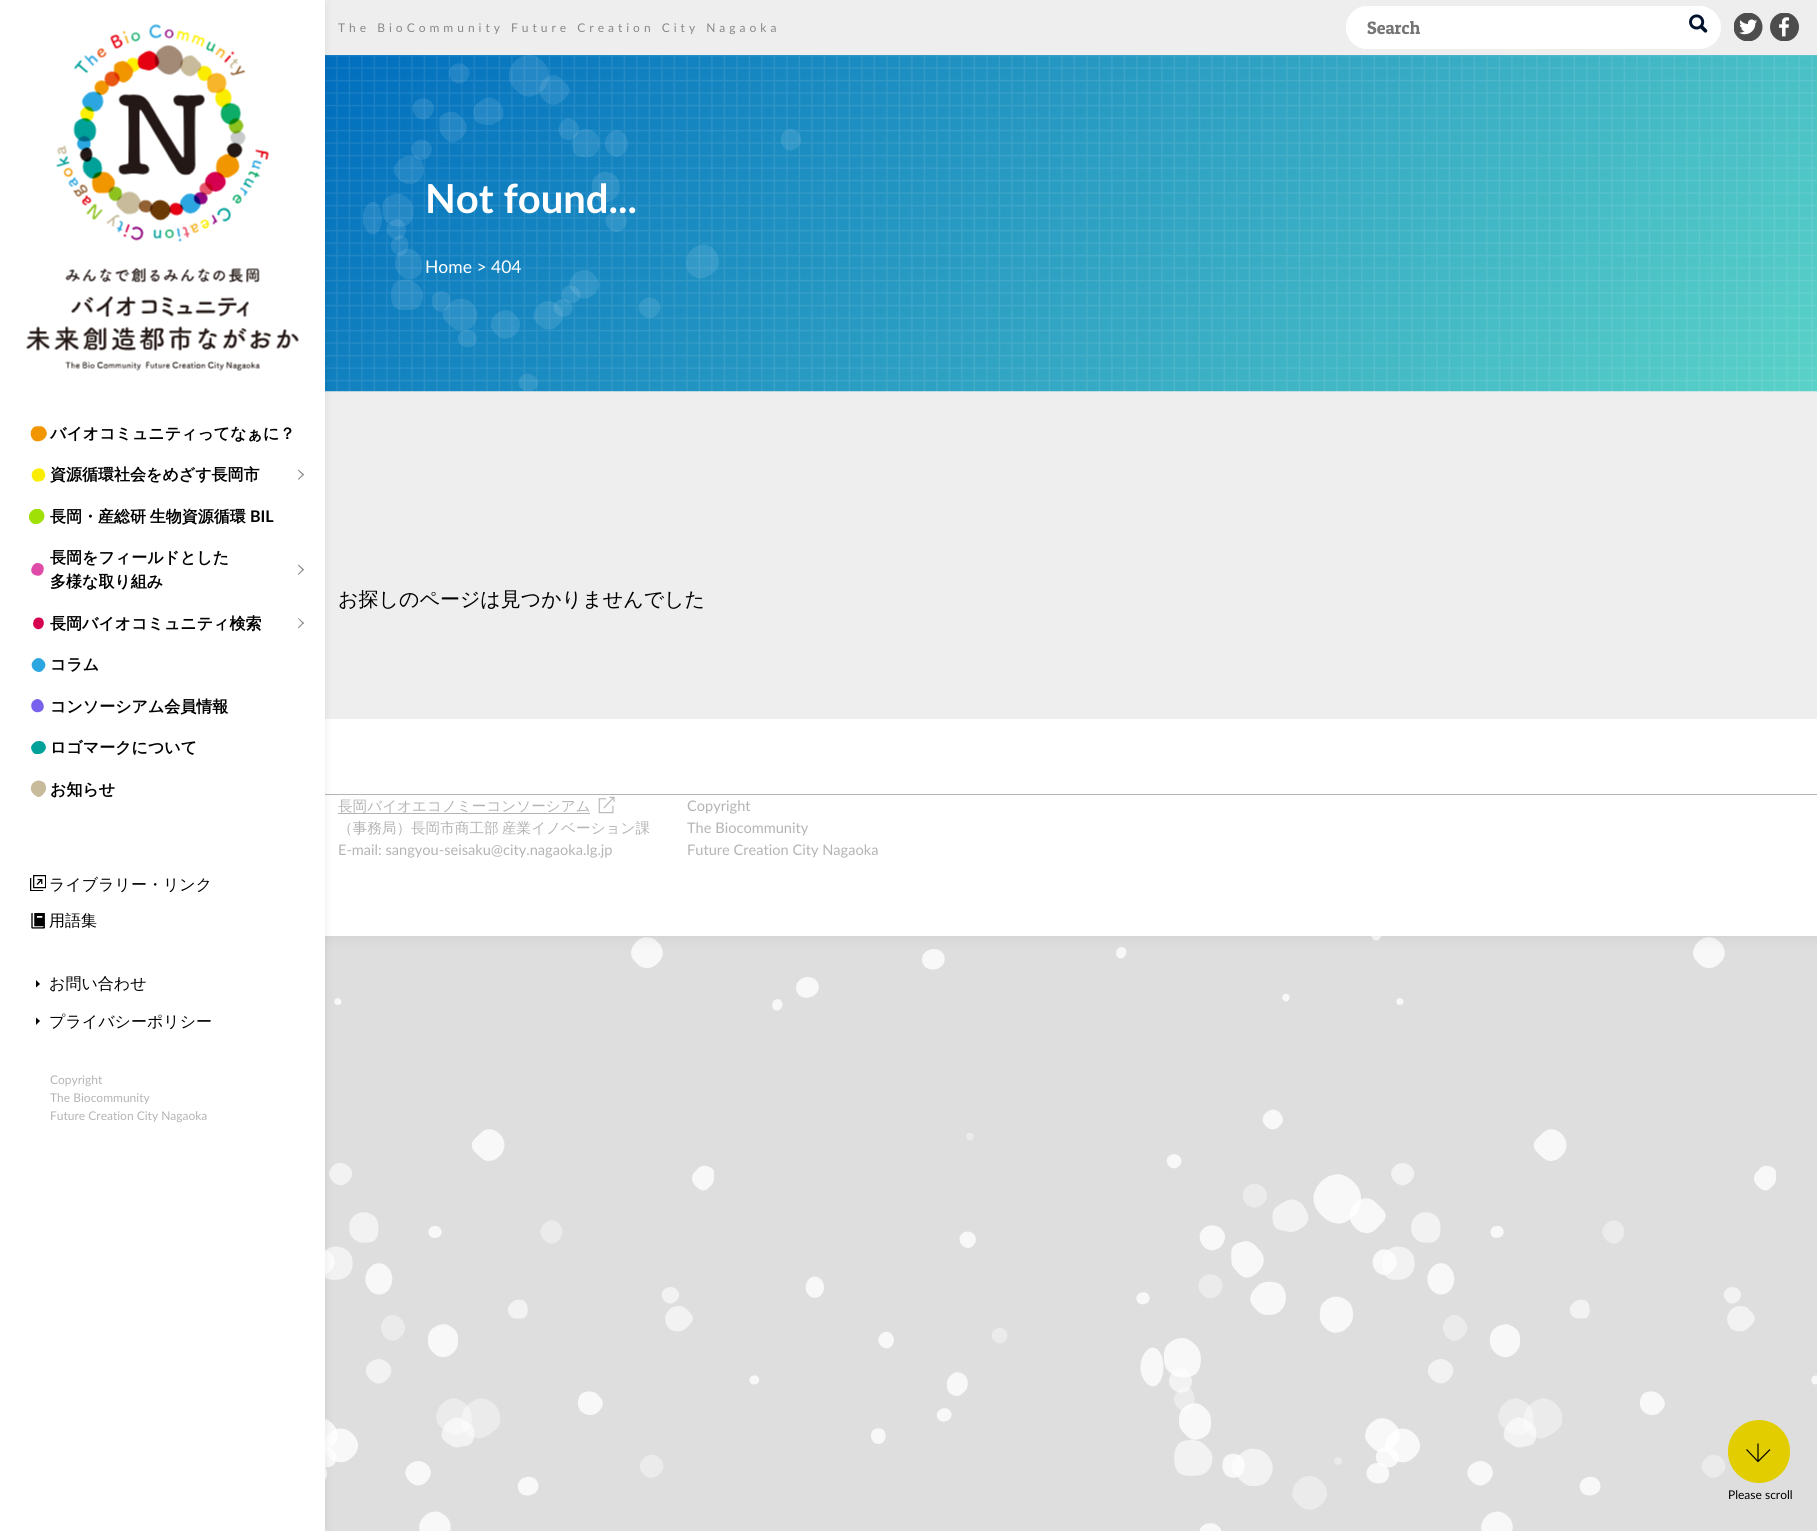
#include <cairo.h>
#include <math.h>
#include <stddef.h>

static cairo_t *ctx;

static void use_color(int r, int g, int b) {
    cairo_set_source_rgb(ctx, r / 255.0, g / 255.0, b / 255.0);
}

static void spaced_text(double x, double y, const char *s, double letter, double word) {
    cairo_move_to(ctx, x, y);
    while (*s) {
        char ch[5] = {0};
        int n = 0;
        do ch[n++] = *s++; while ((*s & 0xC0) == 0x80);
        cairo_show_text(ctx, ch);
        cairo_rel_move_to(ctx, letter + word * (*ch == ' '), 0);
    }
}

static void round_rect(double x, double y, double w, double h, double r) {
    cairo_new_sub_path(ctx);
    cairo_arc(ctx, x + w - r, y + h - r, r, 0, M_PI / 2);
    cairo_arc(ctx, x + r, y + h - r, r, M_PI / 2, M_PI);
    cairo_arc(ctx, x + r, y + r, r, M_PI, 1.5 * M_PI);
    cairo_arc(ctx, x + w - r, y + r, r, 1.5 * M_PI, 2 * M_PI);
    cairo_close_path(ctx);
}

static void shadow(double x, double y, double w, double h, double r, double blur, double alpha) {
    cairo_push_group_with_content(ctx, CAIRO_CONTENT_ALPHA);
    cairo_set_operator(ctx, CAIRO_OPERATOR_SOURCE);
    for (int i = 15; i >= -15 && fmin(w, h) + blur * i / 3 > 0; i -= 2) {
        double e = blur * i / 6;
        cairo_set_source_rgba(ctx, 0, 0, 0, alpha * erfc((i - 1) / 8.5) / 2);
        round_rect(x - e, y - e, w + 2 * e, h + 2 * e, fmax(0, fmin(r + e + blur * .6, fmin(w, h) / 2 + e)));
        cairo_fill(ctx);
    }
    cairo_pattern_t *soft = cairo_pop_group(ctx);
    cairo_mask(ctx, soft);
    cairo_pattern_destroy(soft);
}

static void picture(const char *path, double x, double y, double w, double h) {
    cairo_surface_t *image = cairo_image_surface_create_from_png(path);
    cairo_save(ctx);
    cairo_set_source_surface(ctx, image, x, y);
    cairo_rectangle(ctx, x, y, w, h);
    cairo_fill(ctx);
    cairo_restore(ctx);
    cairo_surface_destroy(image);
}

int main(void) {
    cairo_surface_t *surface = cairo_image_surface_create(CAIRO_FORMAT_RGB24, 1817, 1531);
    ctx = cairo_create(surface);
    cairo_font_options_t *options = cairo_font_options_create();
    cairo_font_options_set_hint_metrics(options, CAIRO_HINT_METRICS_OFF);
    cairo_font_options_set_hint_style(options, CAIRO_HINT_STYLE_NONE);
    cairo_set_font_options(ctx, options);
    cairo_set_miter_limit(ctx, 4);
    use_color(255, 255, 255);
    cairo_paint(ctx);
    picture("img1.png", 325, 936, 1492, 595);
    use_color(0, 0, 0);
    shadow(10, 4, 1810, 929, 0, 9.5, 0.1);
    use_color(238, 238, 238);
    cairo_rectangle(ctx, 325, 0, 1492, 719);
    cairo_fill(ctx);
    picture("img16.png", 325, 55, 1492, 337);
    use_color(255, 255, 255);
    cairo_rectangle(ctx, 325, 719, 1492, 217);
    cairo_fill(ctx);
    use_color(180, 180, 180);
    cairo_rectangle(ctx, 325, 794, 1492, 1);
    cairo_fill(ctx);
    cairo_rectangle(ctx, 338, 813, 252, 1);
    cairo_fill(ctx);
    use_color(0, 0, 0);
    shadow(6, 4, 318, 1524, 0, 5, 0.1);
    use_color(255, 255, 255);
    cairo_rectangle(ctx, 0, 0, 325, 1531);
    cairo_fill(ctx);
    picture("img2.png", 26, 24, 273, 347);
    picture("img3.png", 30, 426, 17, 16);
    cairo_select_font_face(ctx, "WenQuanYi Zen Hei", CAIRO_FONT_SLANT_NORMAL, CAIRO_FONT_WEIGHT_BOLD);
    cairo_set_font_size(ctx, 16);
    use_color(0, 0, 0);
    cairo_move_to(ctx, 50, 439);
    cairo_show_text(ctx, "バイオコミュニティってなぁに？");
    picture("img4.png", 31, 468, 15, 14);
    cairo_move_to(ctx, 50, 480);
    cairo_show_text(ctx, "資源循環社会をめざす長岡市");
    use_color(136, 136, 136);
    cairo_new_path(ctx);
    cairo_move_to(ctx, 298.5, 469.5);
    cairo_line_to(ctx, 304, 474.5);
    cairo_line_to(ctx, 303, 475.5);
    cairo_line_to(ctx, 298, 470.5);
    cairo_close_path(ctx);
    cairo_fill(ctx);
    cairo_new_path(ctx);
    cairo_move_to(ctx, 303, 474);
    cairo_line_to(ctx, 304, 474.5);
    cairo_line_to(ctx, 298.5, 480);
    cairo_line_to(ctx, 298, 479);
    cairo_close_path(ctx);
    cairo_fill(ctx);
    cairo_save(ctx);
    cairo_rectangle(ctx, 29, 509, 16, 15);
    cairo_clip(ctx);
    use_color(161, 224, 7);
    cairo_new_path(ctx);
    cairo_move_to(ctx, 31, 522);
    cairo_curve_to(ctx, 25, 516, 32.5, 506.5, 40, 509);
    cairo_line_to(ctx, 42.5, 511);
    cairo_curve_to(ctx, 49.5, 519.5, 36, 528.5, 31, 522);
    cairo_close_path(ctx);
    cairo_fill(ctx);
    cairo_restore(ctx);
    use_color(0, 0, 0);
    spaced_text(50, 522, "長岡・産総研 生物資源循環", 0, -1);
    cairo_select_font_face(ctx, "Lato", CAIRO_FONT_SLANT_NORMAL, CAIRO_FONT_WEIGHT_BOLD);
    cairo_move_to(ctx, 250, 522);
    cairo_show_text(ctx, "BIL");
    picture("img5.png", 31, 563, 13, 13);
    cairo_select_font_face(ctx, "WenQuanYi Zen Hei", CAIRO_FONT_SLANT_NORMAL, CAIRO_FONT_WEIGHT_BOLD);
    cairo_move_to(ctx, 50, 563);
    cairo_show_text(ctx, "長岡をフィールドとした");
    use_color(136, 136, 136);
    cairo_new_path(ctx);
    cairo_move_to(ctx, 298.5, 564.5);
    cairo_line_to(ctx, 304, 569.5);
    cairo_line_to(ctx, 303, 570.5);
    cairo_line_to(ctx, 298, 565.5);
    cairo_close_path(ctx);
    cairo_fill(ctx);
    cairo_new_path(ctx);
    cairo_move_to(ctx, 303, 569);
    cairo_line_to(ctx, 304, 569.5);
    cairo_line_to(ctx, 298.5, 575);
    cairo_line_to(ctx, 298, 574);
    cairo_close_path(ctx);
    cairo_fill(ctx);
    use_color(0, 0, 0);
    cairo_move_to(ctx, 50, 587);
    cairo_show_text(ctx, "多様な取り組み");
    picture("img6.png", 33, 617, 11, 13);
    cairo_move_to(ctx, 50, 629);
    cairo_show_text(ctx, "長岡バイオコミュニティ検索");
    use_color(136, 136, 136);
    cairo_new_path(ctx);
    cairo_move_to(ctx, 298.5, 618);
    cairo_line_to(ctx, 304, 623);
    cairo_line_to(ctx, 303, 624);
    cairo_line_to(ctx, 298, 618.5);
    cairo_close_path(ctx);
    cairo_fill(ctx);
    cairo_new_path(ctx);
    cairo_move_to(ctx, 303, 622.5);
    cairo_line_to(ctx, 304, 623);
    cairo_line_to(ctx, 298.5, 628.5);
    cairo_line_to(ctx, 298, 627.5);
    cairo_close_path(ctx);
    cairo_fill(ctx);
    picture("img7.png", 31, 658, 15, 14);
    use_color(0, 0, 0);
    cairo_move_to(ctx, 50, 670);
    cairo_show_text(ctx, "コラム");
    picture("img8.png", 31, 699, 13, 14);
    cairo_move_to(ctx, 50, 712);
    cairo_show_text(ctx, "コンソーシアム会員情報");
    picture("img9.png", 31, 741, 15, 13);
    cairo_move_to(ctx, 50, 753);
    cairo_show_text(ctx, "ロゴマークについて");
    picture("img10.png", 30, 780, 17, 17);
    cairo_move_to(ctx, 50, 795);
    cairo_show_text(ctx, "お知らせ");
    picture("img11.png", 30, 875, 16, 16);
    cairo_select_font_face(ctx, "WenQuanYi Zen Hei Medium", CAIRO_FONT_SLANT_NORMAL, CAIRO_FONT_WEIGHT_NORMAL);
    cairo_move_to(ctx, 49, 890);
    cairo_show_text(ctx, "ライブラリー・リンク");
    picture("img12.png", 31, 913, 14, 16);
    cairo_move_to(ctx, 49, 926);
    cairo_show_text(ctx, "用語集");
    cairo_new_path(ctx);
    cairo_move_to(ctx, 36, 987.5);
    cairo_line_to(ctx, 36, 980);
    cairo_line_to(ctx, 40, 984);
    cairo_close_path(ctx);
    cairo_fill(ctx);
    cairo_move_to(ctx, 49, 989);
    cairo_show_text(ctx, "お問い合わせ");
    cairo_new_path(ctx);
    cairo_move_to(ctx, 36, 1025);
    cairo_line_to(ctx, 36, 1017.5);
    cairo_line_to(ctx, 40, 1021);
    cairo_close_path(ctx);
    cairo_fill(ctx);
    cairo_move_to(ctx, 49, 1027);
    cairo_show_text(ctx, "プライバシーポリシー");
    cairo_select_font_face(ctx, "Lato", CAIRO_FONT_SLANT_NORMAL, CAIRO_FONT_WEIGHT_NORMAL);
    cairo_set_font_size(ctx, 12);
    use_color(180, 180, 180);
    cairo_move_to(ctx, 50, 1084);
    cairo_show_text(ctx, "Copyright");
    cairo_move_to(ctx, 50, 1102);
    cairo_show_text(ctx, "The Biocommunity");
    cairo_move_to(ctx, 50, 1120);
    cairo_show_text(ctx, "Future Creation City Nagaoka");
    use_color(136, 136, 136);
    spaced_text(338, 32, "The BioCommunity Future Creation City Nagaoka", 4, 0);
    use_color(255, 255, 255);
    round_rect(1346, 6, 375, 43, 21.5);
    cairo_fill(ctx);
    round_rect(1346, 6, 338, 43, 21.5);
    cairo_fill(ctx);
    cairo_select_font_face(ctx, "Patua One", CAIRO_FONT_SLANT_NORMAL, CAIRO_FONT_WEIGHT_NORMAL);
    cairo_set_font_size(ctx, 18);
    use_color(117, 117, 117);
    cairo_move_to(ctx, 1367, 34);
    cairo_show_text(ctx, "Search");
    picture("img13.png", 1689, 14, 19, 19);
    picture("img14.png", 1734, 13, 29, 28);
    picture("img15.png", 1770, 13, 29, 28);
    cairo_select_font_face(ctx, "Lato", CAIRO_FONT_SLANT_NORMAL, CAIRO_FONT_WEIGHT_BOLD);
    cairo_set_font_size(ctx, 40);
    use_color(255, 255, 255);
    cairo_move_to(ctx, 425, 213);
    cairo_show_text(ctx, "Not found...");
    cairo_select_font_face(ctx, "Lato", CAIRO_FONT_SLANT_NORMAL, CAIRO_FONT_WEIGHT_NORMAL);
    cairo_set_font_size(ctx, 17.5);
    cairo_move_to(ctx, 425, 273);
    cairo_show_text(ctx, "Home > 404");
    cairo_select_font_face(ctx, "WenQuanYi Zen Hei Medium", CAIRO_FONT_SLANT_NORMAL, CAIRO_FONT_WEIGHT_NORMAL);
    cairo_set_font_size(ctx, 20);
    use_color(0, 0, 0);
    cairo_move_to(ctx, 338, 606);
    cairo_show_text(ctx, "お探しのページは見つかりませんでした");
    cairo_set_font_size(ctx, 14.6);
    use_color(180, 180, 180);
    cairo_move_to(ctx, 338, 811);
    cairo_show_text(ctx, "長岡バイオエコノミーコンソーシアム");
    picture("img17.png", 598, 796, 17, 18);
    spaced_text(338, 833, "（事務局）長岡市商工部 産業イノベーション課", 0, -1);
    cairo_select_font_face(ctx, "Lato", CAIRO_FONT_SLANT_NORMAL, CAIRO_FONT_WEIGHT_NORMAL);
    cairo_move_to(ctx, 338, 855);
    cairo_show_text(ctx, "E-mail: sangyou-seisaku@city.nagaoka.lg.jp");
    cairo_move_to(ctx, 687, 811);
    cairo_show_text(ctx, "Copyright");
    cairo_move_to(ctx, 687, 833);
    cairo_show_text(ctx, "The Biocommunity");
    cairo_move_to(ctx, 687, 855);
    cairo_show_text(ctx, "Future Creation City Nagaoka");
    use_color(225, 205, 0);
    round_rect(1728, 1420, 62, 63, 31);
    cairo_fill(ctx);
    cairo_new_path(ctx);
    cairo_move_to(ctx, 1758, 1461.5);
    cairo_line_to(ctx, 1758, 1443.5);
    cairo_move_to(ctx, 1770, 1449.5);
    cairo_line_to(ctx, 1758, 1461.5);
    cairo_line_to(ctx, 1746.5, 1449.5);
    use_color(0, 0, 0);
    cairo_set_line_width(ctx, 1.2);
    cairo_stroke(ctx);
    cairo_set_font_size(ctx, 12);
    cairo_move_to(ctx, 1728, 1499);
    cairo_show_text(ctx, "Please scroll");
    cairo_surface_write_to_png(surface, "result.png");
    cairo_font_options_destroy(options);
    cairo_destroy(ctx);
    cairo_surface_destroy(surface);
    return 0;
}
